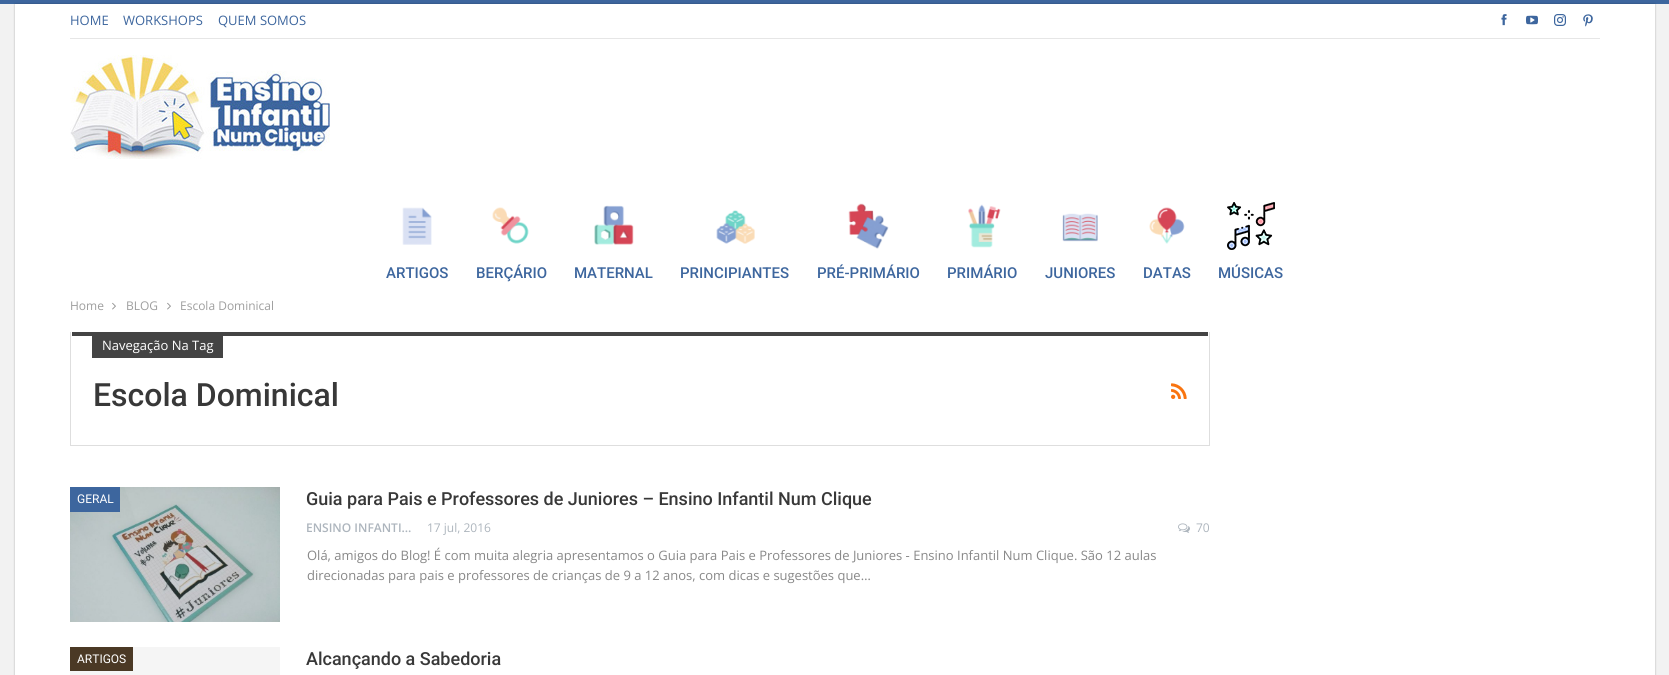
#include <cairo.h>
#include <math.h>
#include <stddef.h>

static cairo_t *ctx;

static void use_color(int r, int g, int b) {
    cairo_set_source_rgb(ctx, r / 255.0, g / 255.0, b / 255.0);
}

static void round_rect(double x, double y, double w, double h, double r) {
    cairo_new_sub_path(ctx);
    cairo_arc(ctx, x + w - r, y + h - r, r, 0, M_PI / 2);
    cairo_arc(ctx, x + r, y + h - r, r, M_PI / 2, M_PI);
    cairo_arc(ctx, x + r, y + r, r, M_PI, 1.5 * M_PI);
    cairo_arc(ctx, x + w - r, y + r, r, 1.5 * M_PI, 2 * M_PI);
    cairo_close_path(ctx);
}

static void shadow(double x, double y, double w, double h, double r, double blur, double alpha) {
    cairo_push_group_with_content(ctx, CAIRO_CONTENT_ALPHA);
    cairo_set_operator(ctx, CAIRO_OPERATOR_SOURCE);
    for (int i = 15; i >= -15 && fmin(w, h) + blur * i / 3 > 0; i -= 2) {
        double e = blur * i / 6;
        cairo_set_source_rgba(ctx, 0, 0, 0, alpha * erfc((i - 1) / 8.5) / 2);
        round_rect(x - e, y - e, w + 2 * e, h + 2 * e, fmax(0, fmin(r + e + blur * .6, fmin(w, h) / 2 + e)));
        cairo_fill(ctx);
    }
    cairo_pattern_t *soft = cairo_pop_group(ctx);
    cairo_mask(ctx, soft);
    cairo_pattern_destroy(soft);
}

static void picture(const char *path, double x, double y, double w, double h) {
    cairo_surface_t *image = cairo_image_surface_create_from_png(path);
    cairo_save(ctx);
    cairo_set_source_surface(ctx, image, x, y);
    cairo_rectangle(ctx, x, y, w, h);
    cairo_fill(ctx);
    cairo_restore(ctx);
    cairo_surface_destroy(image);
}

int main(void) {
    cairo_surface_t *surface = cairo_image_surface_create(CAIRO_FORMAT_RGB24, 1669, 675);
    ctx = cairo_create(surface);
    cairo_font_options_t *options = cairo_font_options_create();
    cairo_font_options_set_hint_metrics(options, CAIRO_HINT_METRICS_OFF);
    cairo_font_options_set_hint_style(options, CAIRO_HINT_STYLE_NONE);
    cairo_set_font_options(ctx, options);
    cairo_set_miter_limit(ctx, 4);
    use_color(242, 242, 242);
    cairo_paint(ctx);
    use_color(61, 102, 158);
    cairo_rectangle(ctx, 0, 0, 1669, 4);
    cairo_fill(ctx);
    use_color(0, 0, 0);
    shadow(15, 4, 1640, 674, 0, 1, 0.27);
    use_color(255, 255, 255);
    cairo_rectangle(ctx, 15, 4, 1640, 671);
    cairo_fill(ctx);
    use_color(230, 230, 230);
    cairo_rectangle(ctx, 70, 38, 1530, 1);
    cairo_fill(ctx);
    cairo_select_font_face(ctx, "Open Sans", CAIRO_FONT_SLANT_NORMAL, CAIRO_FONT_WEIGHT_NORMAL);
    cairo_set_font_size(ctx, 13);
    use_color(61, 102, 158);
    cairo_move_to(ctx, 70, 25);
    cairo_show_text(ctx, "HOME");
    cairo_move_to(ctx, 123, 25);
    cairo_show_text(ctx, "WORKSHOPS");
    cairo_move_to(ctx, 218, 25);
    cairo_show_text(ctx, "QUEM SOMOS");
    picture("img1.png", 1501, 14, 6, 12);
    picture("img2.png", 1526, 15, 12, 10);
    picture("img3.png", 1554, 14, 12, 12);
    picture("img4.png", 1583, 14, 10, 13);
    picture("img5.png", 70, 55, 260, 104);
    picture("img6.png", 402, 207, 30, 38);
    cairo_select_font_face(ctx, "Roboto Medium", CAIRO_FONT_SLANT_NORMAL, CAIRO_FONT_WEIGHT_NORMAL);
    cairo_set_font_size(ctx, 15);
    cairo_move_to(ctx, 386, 278);
    cairo_show_text(ctx, "ARTIGOS");
    picture("img7.png", 492, 207, 37, 37);
    cairo_move_to(ctx, 476, 278);
    cairo_show_text(ctx, "BERÇÁRIO");
    picture("img8.png", 594, 205, 40, 40);
    cairo_move_to(ctx, 574, 278);
    cairo_show_text(ctx, "MATERNAL");
    picture("img9.png", 716, 210, 39, 34);
    cairo_move_to(ctx, 680, 278);
    cairo_show_text(ctx, "PRINCIPIANTES");
    picture("img10.png", 848, 203, 41, 46);
    cairo_move_to(ctx, 817, 278);
    cairo_show_text(ctx, "PRÉ-PRIMÁRIO");
    picture("img11.png", 968, 204, 33, 44);
    cairo_move_to(ctx, 947, 278);
    cairo_show_text(ctx, "PRIMÁRIO");
    picture("img12.png", 1062, 213, 36, 29);
    cairo_move_to(ctx, 1045, 278);
    cairo_show_text(ctx, "JUNIORES");
    picture("img13.png", 1149, 207, 36, 37);
    cairo_move_to(ctx, 1143, 278);
    cairo_show_text(ctx, "DATAS");
    picture("img14.png", 1227, 202, 48, 48);
    cairo_move_to(ctx, 1218, 278);
    cairo_show_text(ctx, "MÚSICAS");
    cairo_select_font_face(ctx, "Open Sans", CAIRO_FONT_SLANT_NORMAL, CAIRO_FONT_WEIGHT_NORMAL);
    cairo_set_font_size(ctx, 12);
    use_color(158, 158, 158);
    cairo_move_to(ctx, 70, 310);
    cairo_show_text(ctx, "Home");
    picture("img15.png", 112, 302, 4, 8);
    cairo_move_to(ctx, 126, 310);
    cairo_show_text(ctx, "BLOG");
    picture("img15.png", 167, 302, 4, 8);
    cairo_move_to(ctx, 180, 310);
    cairo_show_text(ctx, "Escola Dominical");
    use_color(222, 222, 222);
    cairo_rectangle(ctx, 1209, 332, 1, 114);
    cairo_fill(ctx);
    cairo_rectangle(ctx, 70, 445, 1140, 1);
    cairo_fill(ctx);
    cairo_rectangle(ctx, 70, 332, 1, 114);
    cairo_fill(ctx);
    use_color(68, 68, 68);
    cairo_rectangle(ctx, 72, 332, 1136, 4);
    cairo_fill(ctx);
    cairo_rectangle(ctx, 92, 336, 131, 22);
    cairo_fill(ctx);
    cairo_set_font_size(ctx, 13);
    use_color(255, 255, 255);
    cairo_move_to(ctx, 102, 350);
    cairo_show_text(ctx, "Navegação Na Tag");
    cairo_select_font_face(ctx, "Roboto Medium", CAIRO_FONT_SLANT_NORMAL, CAIRO_FONT_WEIGHT_NORMAL);
    cairo_set_font_size(ctx, 32);
    use_color(56, 56, 56);
    cairo_move_to(ctx, 93, 406);
    cairo_show_text(ctx, "Escola Dominical");
    picture("img16.png", 1171, 383, 16, 16);
    picture("img17.png", 70, 487, 210, 135);
    use_color(61, 102, 158);
    cairo_rectangle(ctx, 70, 487, 50, 25);
    cairo_fill(ctx);
    cairo_select_font_face(ctx, "Roboto", CAIRO_FONT_SLANT_NORMAL, CAIRO_FONT_WEIGHT_NORMAL);
    cairo_set_font_size(ctx, 12);
    use_color(255, 255, 255);
    cairo_move_to(ctx, 77, 503);
    cairo_show_text(ctx, "GERAL");
    cairo_select_font_face(ctx, "Roboto Medium", CAIRO_FONT_SLANT_NORMAL, CAIRO_FONT_WEIGHT_NORMAL);
    cairo_set_font_size(ctx, 18);
    use_color(56, 56, 56);
    cairo_move_to(ctx, 306, 505);
    cairo_show_text(ctx, "Guia para Pais e Professores de Juniores – Ensino Infantil Num Clique");
    cairo_select_font_face(ctx, "Open Sans SemiBold", CAIRO_FONT_SLANT_NORMAL, CAIRO_FONT_WEIGHT_NORMAL);
    cairo_set_font_size(ctx, 12);
    use_color(173, 181, 189);
    cairo_move_to(ctx, 306, 532);
    cairo_show_text(ctx, "ENSINO INFANTI…");
    cairo_select_font_face(ctx, "Open Sans", CAIRO_FONT_SLANT_NORMAL, CAIRO_FONT_WEIGHT_NORMAL);
    cairo_move_to(ctx, 427, 532);
    cairo_show_text(ctx, "17 jul, 2016");
    picture("img18.png", 1178, 523, 12, 10);
    cairo_move_to(ctx, 1196, 532);
    cairo_show_text(ctx, "70");
    cairo_set_font_size(ctx, 13);
    use_color(136, 136, 136);
    cairo_move_to(ctx, 307, 560);
    cairo_show_text(ctx, "Olá, amigos do Blog! É com muita alegria apresentamos o Guia para Pais e Professores de Juniores - Ensino Infantil Num Clique. São 12 aulas");
    cairo_move_to(ctx, 307, 580);
    cairo_show_text(ctx, "direcionadas para pais e professores de crianças de 9 a 12 anos, com dicas e sugestões que…");
    use_color(245, 245, 245);
    cairo_rectangle(ctx, 70, 647, 210, 28);
    cairo_fill(ctx);
    use_color(75, 57, 37);
    cairo_rectangle(ctx, 70, 647, 63, 24);
    cairo_fill(ctx);
    cairo_select_font_face(ctx, "Roboto", CAIRO_FONT_SLANT_NORMAL, CAIRO_FONT_WEIGHT_NORMAL);
    cairo_set_font_size(ctx, 12);
    use_color(255, 255, 255);
    cairo_move_to(ctx, 77, 663);
    cairo_show_text(ctx, "ARTIGOS");
    cairo_select_font_face(ctx, "Roboto Medium", CAIRO_FONT_SLANT_NORMAL, CAIRO_FONT_WEIGHT_NORMAL);
    cairo_set_font_size(ctx, 18);
    use_color(56, 56, 56);
    cairo_move_to(ctx, 306, 665);
    cairo_show_text(ctx, "Alcançando a Sabedoria");
    cairo_surface_write_to_png(surface, "result.png");
    cairo_font_options_destroy(options);
    cairo_destroy(ctx);
    cairo_surface_destroy(surface);
    return 0;
}
